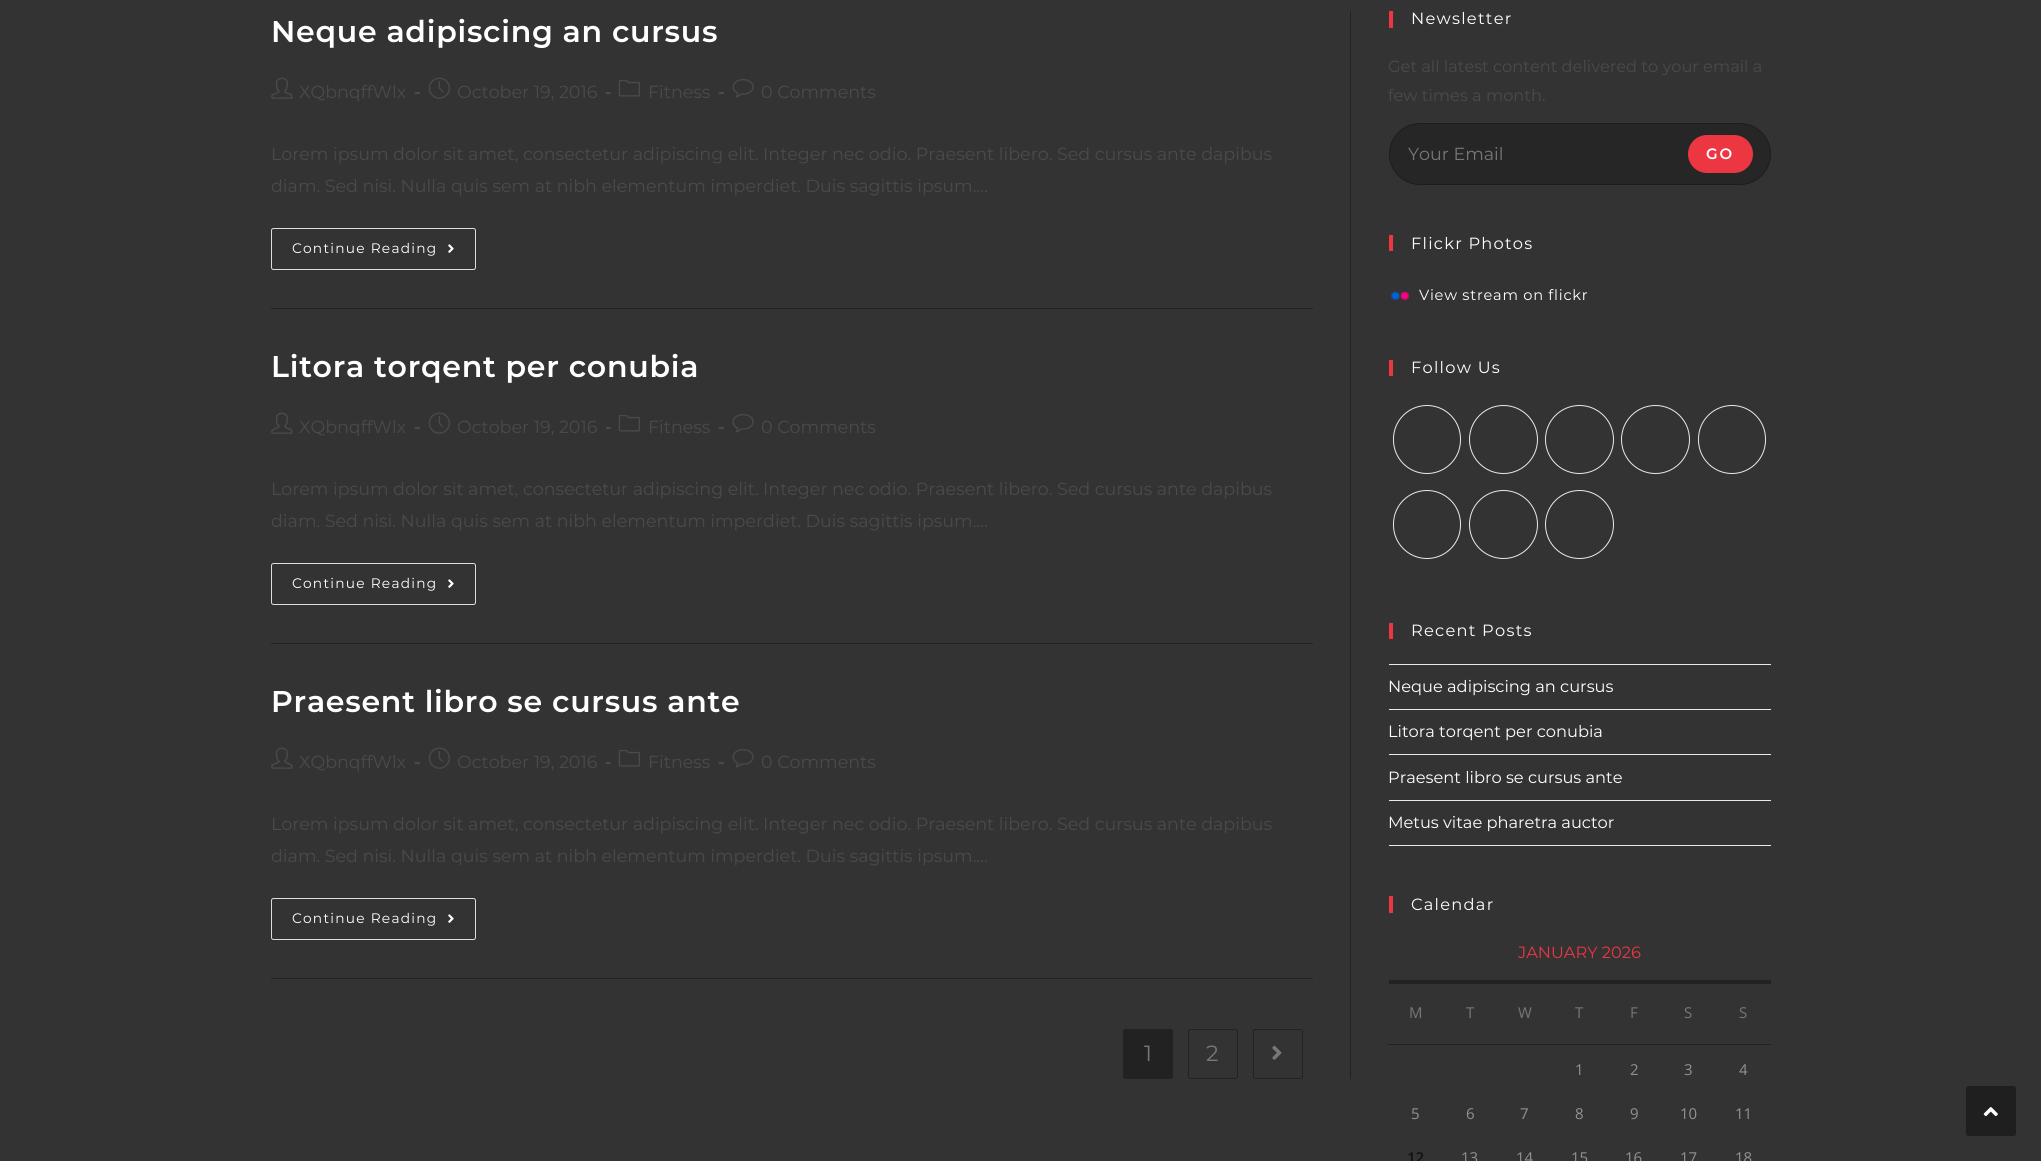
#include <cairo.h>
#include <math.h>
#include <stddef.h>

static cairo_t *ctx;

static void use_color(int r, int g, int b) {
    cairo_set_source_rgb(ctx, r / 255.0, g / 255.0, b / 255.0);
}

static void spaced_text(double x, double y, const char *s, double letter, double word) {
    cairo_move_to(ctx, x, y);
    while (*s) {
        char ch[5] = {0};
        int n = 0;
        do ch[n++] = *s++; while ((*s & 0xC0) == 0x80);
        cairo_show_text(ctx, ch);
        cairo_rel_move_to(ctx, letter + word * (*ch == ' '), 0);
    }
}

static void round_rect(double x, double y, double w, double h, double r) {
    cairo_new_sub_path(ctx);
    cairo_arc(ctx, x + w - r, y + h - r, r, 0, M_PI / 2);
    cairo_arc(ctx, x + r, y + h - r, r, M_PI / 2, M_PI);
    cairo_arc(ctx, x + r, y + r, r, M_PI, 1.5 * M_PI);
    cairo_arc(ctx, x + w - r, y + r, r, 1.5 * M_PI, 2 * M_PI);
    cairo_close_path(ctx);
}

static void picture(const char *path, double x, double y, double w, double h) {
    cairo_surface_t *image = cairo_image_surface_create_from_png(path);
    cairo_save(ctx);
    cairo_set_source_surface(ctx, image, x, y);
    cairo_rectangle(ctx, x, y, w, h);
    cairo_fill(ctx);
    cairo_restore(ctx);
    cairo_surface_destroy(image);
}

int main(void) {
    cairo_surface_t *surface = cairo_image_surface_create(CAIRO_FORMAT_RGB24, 2041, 1161);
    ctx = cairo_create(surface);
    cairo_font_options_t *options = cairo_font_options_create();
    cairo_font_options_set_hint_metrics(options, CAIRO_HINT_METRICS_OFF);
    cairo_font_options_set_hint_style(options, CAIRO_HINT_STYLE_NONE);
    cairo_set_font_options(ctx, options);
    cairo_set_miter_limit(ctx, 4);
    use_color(51, 51, 51);
    cairo_paint(ctx);
    use_color(34, 34, 34);
    cairo_rectangle(ctx, 1350, 11, 1, 1068);
    cairo_fill(ctx);
    cairo_rectangle(ctx, 271, 308, 1042, 1);
    cairo_fill(ctx);
    cairo_select_font_face(ctx, "Montserrat SemiBold", CAIRO_FONT_SLANT_NORMAL, CAIRO_FONT_WEIGHT_NORMAL);
    cairo_set_font_size(ctx, 30);
    use_color(255, 255, 255);
    spaced_text(271, 42, "Neque adipiscing an cursus", 0.75, 0);
    picture("img1.png", 271, 77, 22, 22);
    cairo_select_font_face(ctx, "Montserrat", CAIRO_FONT_SLANT_NORMAL, CAIRO_FONT_WEIGHT_NORMAL);
    cairo_set_font_size(ctx, 17.5);
    use_color(74, 74, 74);
    cairo_move_to(ctx, 299, 98);
    cairo_show_text(ctx, "XQbnqffWlx");
    cairo_select_font_face(ctx, "Montserrat", CAIRO_FONT_SLANT_NORMAL, CAIRO_FONT_WEIGHT_BOLD);
    cairo_move_to(ctx, 414, 98);
    cairo_show_text(ctx, "-");
    picture("img2.png", 428, 77, 22, 22);
    cairo_select_font_face(ctx, "Montserrat", CAIRO_FONT_SLANT_NORMAL, CAIRO_FONT_WEIGHT_NORMAL);
    cairo_move_to(ctx, 457, 98);
    cairo_show_text(ctx, "October 19, 2016");
    cairo_select_font_face(ctx, "Montserrat", CAIRO_FONT_SLANT_NORMAL, CAIRO_FONT_WEIGHT_BOLD);
    cairo_move_to(ctx, 605, 98);
    cairo_show_text(ctx, "-");
    picture("img3.png", 618, 80, 22, 17);
    cairo_select_font_face(ctx, "Montserrat", CAIRO_FONT_SLANT_NORMAL, CAIRO_FONT_WEIGHT_NORMAL);
    cairo_move_to(ctx, 648, 98);
    cairo_show_text(ctx, "Fitness");
    cairo_select_font_face(ctx, "Montserrat", CAIRO_FONT_SLANT_NORMAL, CAIRO_FONT_WEIGHT_BOLD);
    cairo_move_to(ctx, 718, 98);
    cairo_show_text(ctx, "-");
    picture("img4.png", 732, 79, 22, 19);
    cairo_select_font_face(ctx, "Montserrat", CAIRO_FONT_SLANT_NORMAL, CAIRO_FONT_WEIGHT_NORMAL);
    cairo_move_to(ctx, 761, 98);
    cairo_show_text(ctx, "0 Comments");
    cairo_move_to(ctx, 271, 160);
    cairo_show_text(ctx, "Lorem ipsum dolor sit amet, consectetur adipiscing elit. Integer nec odio. Praesent libero. Sed cursus ante dapibus");
    cairo_move_to(ctx, 271, 192);
    cairo_show_text(ctx, "diam. Sed nisi. Nulla quis sem at nibh elementum imperdiet. Duis sagittis ipsum.…");
    round_rect(271.5, 228.5, 204, 41, 2);
    use_color(221, 221, 221);
    cairo_set_line_width(ctx, 1);
    cairo_stroke(ctx);
    cairo_set_font_size(ctx, 13.75);
    use_color(255, 255, 255);
    spaced_text(292, 253, "Continue Reading", 1.25, 0);
    picture("img5.png", 448, 244, 6, 9);
    use_color(34, 34, 34);
    cairo_rectangle(ctx, 271, 643, 1042, 1);
    cairo_fill(ctx);
    cairo_select_font_face(ctx, "Montserrat SemiBold", CAIRO_FONT_SLANT_NORMAL, CAIRO_FONT_WEIGHT_NORMAL);
    cairo_set_font_size(ctx, 30);
    use_color(255, 255, 255);
    spaced_text(271, 377, "Litora torqent per conubia", 0.75, 0);
    picture("img1.png", 271, 412, 22, 22);
    cairo_select_font_face(ctx, "Montserrat", CAIRO_FONT_SLANT_NORMAL, CAIRO_FONT_WEIGHT_NORMAL);
    cairo_set_font_size(ctx, 17.5);
    use_color(74, 74, 74);
    cairo_move_to(ctx, 299, 433);
    cairo_show_text(ctx, "XQbnqffWlx");
    cairo_select_font_face(ctx, "Montserrat", CAIRO_FONT_SLANT_NORMAL, CAIRO_FONT_WEIGHT_BOLD);
    cairo_move_to(ctx, 414, 433);
    cairo_show_text(ctx, "-");
    picture("img2.png", 428, 412, 22, 22);
    cairo_select_font_face(ctx, "Montserrat", CAIRO_FONT_SLANT_NORMAL, CAIRO_FONT_WEIGHT_NORMAL);
    cairo_move_to(ctx, 457, 433);
    cairo_show_text(ctx, "October 19, 2016");
    cairo_select_font_face(ctx, "Montserrat", CAIRO_FONT_SLANT_NORMAL, CAIRO_FONT_WEIGHT_BOLD);
    cairo_move_to(ctx, 605, 433);
    cairo_show_text(ctx, "-");
    picture("img3.png", 618, 415, 22, 17);
    cairo_select_font_face(ctx, "Montserrat", CAIRO_FONT_SLANT_NORMAL, CAIRO_FONT_WEIGHT_NORMAL);
    cairo_move_to(ctx, 648, 433);
    cairo_show_text(ctx, "Fitness");
    cairo_select_font_face(ctx, "Montserrat", CAIRO_FONT_SLANT_NORMAL, CAIRO_FONT_WEIGHT_BOLD);
    cairo_move_to(ctx, 718, 433);
    cairo_show_text(ctx, "-");
    picture("img4.png", 732, 414, 22, 19);
    cairo_select_font_face(ctx, "Montserrat", CAIRO_FONT_SLANT_NORMAL, CAIRO_FONT_WEIGHT_NORMAL);
    cairo_move_to(ctx, 761, 433);
    cairo_show_text(ctx, "0 Comments");
    cairo_move_to(ctx, 271, 495);
    cairo_show_text(ctx, "Lorem ipsum dolor sit amet, consectetur adipiscing elit. Integer nec odio. Praesent libero. Sed cursus ante dapibus");
    cairo_move_to(ctx, 271, 527);
    cairo_show_text(ctx, "diam. Sed nisi. Nulla quis sem at nibh elementum imperdiet. Duis sagittis ipsum.…");
    round_rect(271.5, 563.5, 204, 41, 2);
    use_color(221, 221, 221);
    cairo_stroke(ctx);
    cairo_set_font_size(ctx, 13.75);
    use_color(255, 255, 255);
    spaced_text(292, 588, "Continue Reading", 1.25, 0);
    picture("img5.png", 448, 579, 6, 9);
    use_color(34, 34, 34);
    cairo_rectangle(ctx, 271, 978, 1042, 1);
    cairo_fill(ctx);
    cairo_select_font_face(ctx, "Montserrat SemiBold", CAIRO_FONT_SLANT_NORMAL, CAIRO_FONT_WEIGHT_NORMAL);
    cairo_set_font_size(ctx, 30);
    use_color(255, 255, 255);
    spaced_text(271, 712, "Praesent libro se cursus ante", 0.75, 0);
    picture("img1.png", 271, 747, 22, 22);
    cairo_select_font_face(ctx, "Montserrat", CAIRO_FONT_SLANT_NORMAL, CAIRO_FONT_WEIGHT_NORMAL);
    cairo_set_font_size(ctx, 17.5);
    use_color(74, 74, 74);
    cairo_move_to(ctx, 299, 768);
    cairo_show_text(ctx, "XQbnqffWlx");
    cairo_select_font_face(ctx, "Montserrat", CAIRO_FONT_SLANT_NORMAL, CAIRO_FONT_WEIGHT_BOLD);
    cairo_move_to(ctx, 414, 768);
    cairo_show_text(ctx, "-");
    picture("img2.png", 428, 747, 22, 22);
    cairo_select_font_face(ctx, "Montserrat", CAIRO_FONT_SLANT_NORMAL, CAIRO_FONT_WEIGHT_NORMAL);
    cairo_move_to(ctx, 457, 768);
    cairo_show_text(ctx, "October 19, 2016");
    cairo_select_font_face(ctx, "Montserrat", CAIRO_FONT_SLANT_NORMAL, CAIRO_FONT_WEIGHT_BOLD);
    cairo_move_to(ctx, 605, 768);
    cairo_show_text(ctx, "-");
    picture("img3.png", 618, 750, 22, 17);
    cairo_select_font_face(ctx, "Montserrat", CAIRO_FONT_SLANT_NORMAL, CAIRO_FONT_WEIGHT_NORMAL);
    cairo_move_to(ctx, 648, 768);
    cairo_show_text(ctx, "Fitness");
    cairo_select_font_face(ctx, "Montserrat", CAIRO_FONT_SLANT_NORMAL, CAIRO_FONT_WEIGHT_BOLD);
    cairo_move_to(ctx, 718, 768);
    cairo_show_text(ctx, "-");
    picture("img4.png", 732, 749, 22, 19);
    cairo_select_font_face(ctx, "Montserrat", CAIRO_FONT_SLANT_NORMAL, CAIRO_FONT_WEIGHT_NORMAL);
    cairo_move_to(ctx, 761, 768);
    cairo_show_text(ctx, "0 Comments");
    cairo_move_to(ctx, 271, 830);
    cairo_show_text(ctx, "Lorem ipsum dolor sit amet, consectetur adipiscing elit. Integer nec odio. Praesent libero. Sed cursus ante dapibus");
    cairo_move_to(ctx, 271, 862);
    cairo_show_text(ctx, "diam. Sed nisi. Nulla quis sem at nibh elementum imperdiet. Duis sagittis ipsum.…");
    round_rect(271.5, 898.5, 204, 41, 2);
    use_color(221, 221, 221);
    cairo_stroke(ctx);
    cairo_set_font_size(ctx, 13.75);
    use_color(255, 255, 255);
    spaced_text(292, 923, "Continue Reading", 1.25, 0);
    picture("img5.png", 448, 914, 6, 9);
    use_color(34, 34, 34);
    round_rect(1123.5, 1029.5, 49, 49, 2);
    cairo_fill_preserve(ctx);
    cairo_stroke(ctx);
    cairo_set_font_size(ctx, 22);
    use_color(119, 119, 119);
    cairo_move_to(ctx, 1144, 1061);
    cairo_show_text(ctx, "1");
    round_rect(1188.5, 1029.5, 49, 49, 2);
    use_color(34, 34, 34);
    cairo_stroke(ctx);
    use_color(119, 119, 119);
    cairo_move_to(ctx, 1206, 1061);
    cairo_show_text(ctx, "2");
    round_rect(1253.5, 1029.5, 49, 49, 2);
    use_color(34, 34, 34);
    cairo_stroke(ctx);
    picture("img6.png", 1272, 1045, 10, 15);
    use_color(236, 54, 66);
    cairo_rectangle(ctx, 1389, 11, 4, 17);
    cairo_fill(ctx);
    cairo_set_font_size(ctx, 16.25);
    use_color(255, 255, 255);
    spaced_text(1411, 24, "Newsletter", 1.25, 0);
    use_color(74, 74, 74);
    cairo_move_to(ctx, 1388, 72);
    cairo_show_text(ctx, "Get all latest content delivered to your email a");
    cairo_move_to(ctx, 1388, 101);
    cairo_show_text(ctx, "few times a month.");
    use_color(38, 38, 38);
    round_rect(1389.5, 123.5, 381, 61, 30.5);
    cairo_fill_preserve(ctx);
    use_color(28, 28, 28);
    cairo_stroke(ctx);
    cairo_set_font_size(ctx, 17.5);
    use_color(119, 119, 119);
    cairo_move_to(ctx, 1408, 160);
    cairo_show_text(ctx, "Your Email");
    use_color(236, 54, 66);
    round_rect(1688, 135, 65, 38, 19);
    cairo_fill(ctx);
    cairo_select_font_face(ctx, "Montserrat SemiBold", CAIRO_FONT_SLANT_NORMAL, CAIRO_FONT_WEIGHT_NORMAL);
    cairo_set_font_size(ctx, 15);
    use_color(255, 255, 255);
    spaced_text(1706, 159, "GO", 2, 0);
    use_color(236, 54, 66);
    cairo_rectangle(ctx, 1389, 235, 4, 16);
    cairo_fill(ctx);
    cairo_select_font_face(ctx, "Montserrat", CAIRO_FONT_SLANT_NORMAL, CAIRO_FONT_WEIGHT_NORMAL);
    cairo_set_font_size(ctx, 16.25);
    use_color(255, 255, 255);
    spaced_text(1411, 249, "Flickr Photos", 1.25, 0);
    picture("img7.png", 1391, 291, 18, 9);
    cairo_set_font_size(ctx, 14.6);
    spaced_text(1419, 300, "View stream on flickr", 0.75, 0);
    use_color(236, 54, 66);
    cairo_rectangle(ctx, 1389, 360, 4, 16);
    cairo_fill(ctx);
    cairo_set_font_size(ctx, 16.25);
    use_color(255, 255, 255);
    spaced_text(1411, 373, "Follow Us", 1.25, 0);
    round_rect(1393.5, 405.5, 67, 68, 33.5);
    use_color(233, 233, 233);
    cairo_stroke(ctx);
    cairo_arc(ctx, 1503.5, 439.5, 34, 0, 2 * M_PI);
    cairo_stroke(ctx);
    cairo_arc(ctx, 1579.5, 439.5, 34, 0, 2 * M_PI);
    cairo_stroke(ctx);
    cairo_arc(ctx, 1655.5, 439.5, 34, 0, 2 * M_PI);
    cairo_stroke(ctx);
    round_rect(1698.5, 405.5, 67, 68, 33.5);
    cairo_stroke(ctx);
    round_rect(1393.5, 490.5, 67, 68, 33.5);
    cairo_stroke(ctx);
    cairo_arc(ctx, 1503.5, 524.5, 34, 0, 2 * M_PI);
    cairo_stroke(ctx);
    cairo_arc(ctx, 1579.5, 524.5, 34, 0, 2 * M_PI);
    cairo_stroke(ctx);
    use_color(236, 54, 66);
    cairo_rectangle(ctx, 1389, 623, 4, 16);
    cairo_fill(ctx);
    use_color(255, 255, 255);
    spaced_text(1411, 636, "Recent Posts", 1.25, 0);
    use_color(233, 233, 233);
    cairo_rectangle(ctx, 1389, 664, 382, 1);
    cairo_fill(ctx);
    cairo_rectangle(ctx, 1389, 709, 382, 1);
    cairo_fill(ctx);
    use_color(255, 255, 255);
    cairo_move_to(ctx, 1388, 692);
    cairo_show_text(ctx, "Neque adipiscing an cursus");
    use_color(233, 233, 233);
    cairo_rectangle(ctx, 1389, 754, 382, 1);
    cairo_fill(ctx);
    use_color(255, 255, 255);
    cairo_move_to(ctx, 1388, 737);
    cairo_show_text(ctx, "Litora torqent per conubia");
    use_color(233, 233, 233);
    cairo_rectangle(ctx, 1389, 800, 382, 1);
    cairo_fill(ctx);
    use_color(255, 255, 255);
    cairo_move_to(ctx, 1388, 783);
    cairo_show_text(ctx, "Praesent libro se cursus ante");
    use_color(233, 233, 233);
    cairo_rectangle(ctx, 1389, 845, 382, 1);
    cairo_fill(ctx);
    use_color(255, 255, 255);
    cairo_move_to(ctx, 1388, 828);
    cairo_show_text(ctx, "Metus vitae pharetra auctor");
    use_color(236, 54, 66);
    cairo_rectangle(ctx, 1389, 896, 4, 17);
    cairo_fill(ctx);
    use_color(255, 255, 255);
    spaced_text(1411, 910, "Calendar", 1.25, 0);
    use_color(34, 34, 34);
    cairo_rectangle(ctx, 1389, 980, 382, 4);
    cairo_fill(ctx);
    use_color(236, 54, 66);
    cairo_move_to(ctx, 1518, 958);
    cairo_show_text(ctx, "JANUARY 2026");
    cairo_select_font_face(ctx, "Open Sans", CAIRO_FONT_SLANT_NORMAL, CAIRO_FONT_WEIGHT_NORMAL);
    cairo_set_font_size(ctx, 15);
    use_color(119, 119, 119);
    cairo_move_to(ctx, 1409, 1018);
    cairo_show_text(ctx, "M");
    cairo_move_to(ctx, 1466, 1018);
    cairo_show_text(ctx, "T");
    cairo_move_to(ctx, 1518, 1018);
    cairo_show_text(ctx, "W");
    cairo_move_to(ctx, 1575, 1018);
    cairo_show_text(ctx, "T");
    cairo_move_to(ctx, 1630, 1018);
    cairo_show_text(ctx, "F");
    cairo_move_to(ctx, 1684, 1018);
    cairo_show_text(ctx, "S");
    use_color(34, 34, 34);
    cairo_rectangle(ctx, 1388, 1044, 383, 1);
    cairo_fill(ctx);
    use_color(119, 119, 119);
    cairo_move_to(ctx, 1739, 1018);
    cairo_show_text(ctx, "S");
    use_color(146, 146, 146);
    cairo_move_to(ctx, 1575, 1075);
    cairo_show_text(ctx, "1");
    cairo_move_to(ctx, 1630, 1075);
    cairo_show_text(ctx, "2");
    cairo_move_to(ctx, 1684, 1075);
    cairo_show_text(ctx, "3");
    cairo_move_to(ctx, 1739, 1075);
    cairo_show_text(ctx, "4");
    cairo_move_to(ctx, 1411, 1119);
    cairo_show_text(ctx, "5");
    cairo_move_to(ctx, 1466, 1119);
    cairo_show_text(ctx, "6");
    cairo_move_to(ctx, 1520, 1119);
    cairo_show_text(ctx, "7");
    cairo_move_to(ctx, 1575, 1119);
    cairo_show_text(ctx, "8");
    cairo_move_to(ctx, 1630, 1119);
    cairo_show_text(ctx, "9");
    cairo_move_to(ctx, 1680, 1119);
    cairo_show_text(ctx, "10");
    cairo_move_to(ctx, 1735, 1119);
    cairo_show_text(ctx, "11");
    cairo_select_font_face(ctx, "Open Sans SemiBold", CAIRO_FONT_SLANT_NORMAL, CAIRO_FONT_WEIGHT_NORMAL);
    use_color(17, 17, 17);
    cairo_move_to(ctx, 1407, 1163);
    cairo_show_text(ctx, "12");
    cairo_select_font_face(ctx, "Open Sans", CAIRO_FONT_SLANT_NORMAL, CAIRO_FONT_WEIGHT_NORMAL);
    use_color(146, 146, 146);
    cairo_move_to(ctx, 1461, 1163);
    cairo_show_text(ctx, "13");
    cairo_move_to(ctx, 1516, 1163);
    cairo_show_text(ctx, "14");
    cairo_move_to(ctx, 1571, 1163);
    cairo_show_text(ctx, "15");
    cairo_move_to(ctx, 1625, 1163);
    cairo_show_text(ctx, "16");
    cairo_move_to(ctx, 1680, 1163);
    cairo_show_text(ctx, "17");
    cairo_move_to(ctx, 1735, 1163);
    cairo_show_text(ctx, "18");
    use_color(31, 31, 31);
    round_rect(1966, 1086, 50, 50, 2.5);
    cairo_fill(ctx);
    picture("img8.png", 1983, 1107, 15, 10);
    cairo_surface_write_to_png(surface, "result.png");
    cairo_font_options_destroy(options);
    cairo_destroy(ctx);
    cairo_surface_destroy(surface);
    return 0;
}
